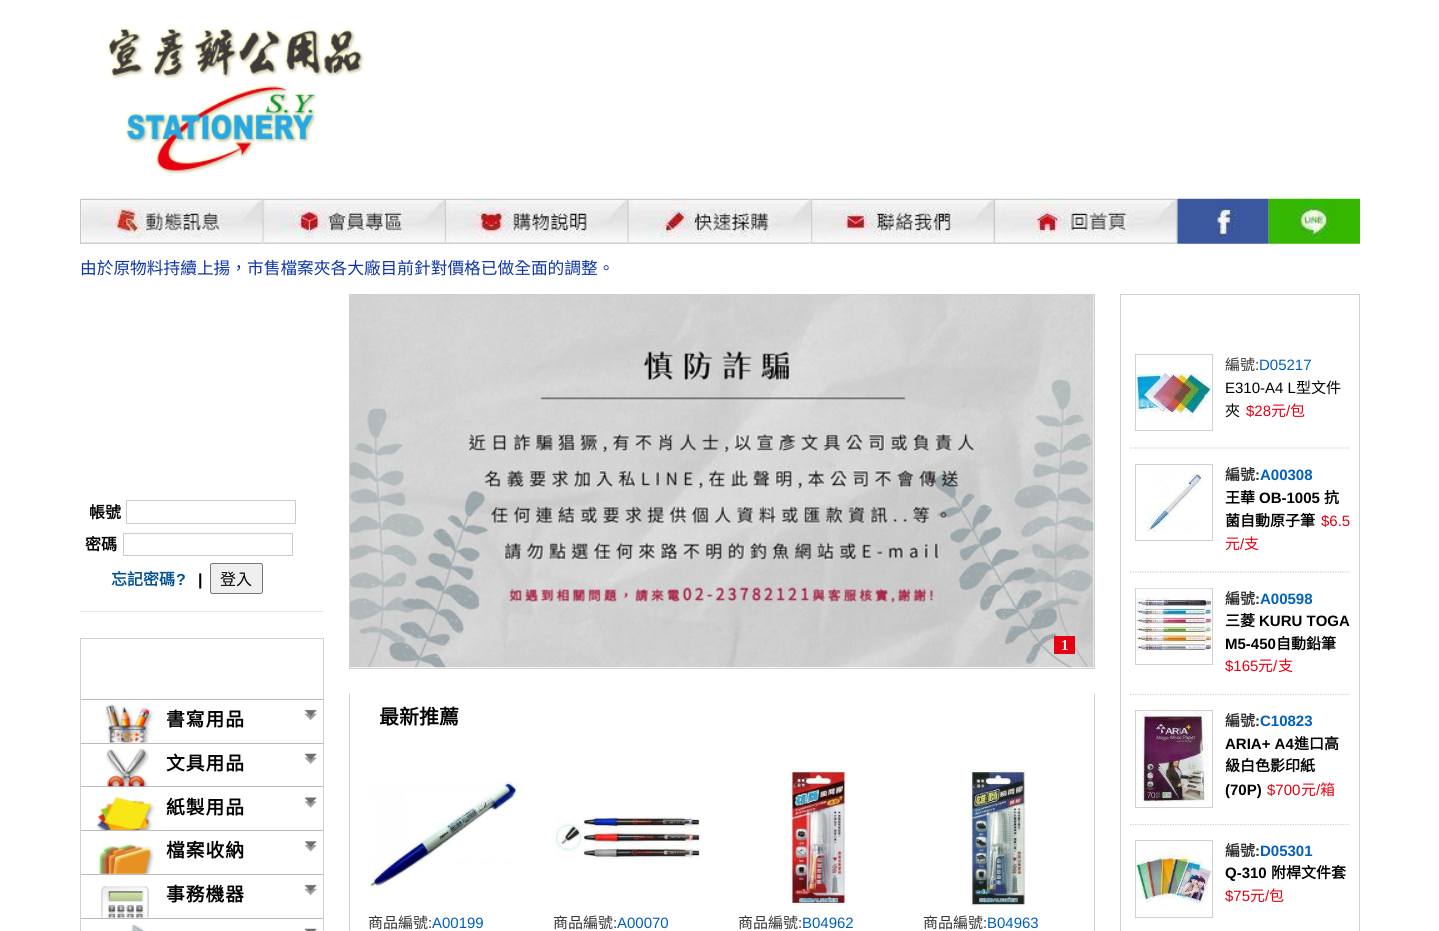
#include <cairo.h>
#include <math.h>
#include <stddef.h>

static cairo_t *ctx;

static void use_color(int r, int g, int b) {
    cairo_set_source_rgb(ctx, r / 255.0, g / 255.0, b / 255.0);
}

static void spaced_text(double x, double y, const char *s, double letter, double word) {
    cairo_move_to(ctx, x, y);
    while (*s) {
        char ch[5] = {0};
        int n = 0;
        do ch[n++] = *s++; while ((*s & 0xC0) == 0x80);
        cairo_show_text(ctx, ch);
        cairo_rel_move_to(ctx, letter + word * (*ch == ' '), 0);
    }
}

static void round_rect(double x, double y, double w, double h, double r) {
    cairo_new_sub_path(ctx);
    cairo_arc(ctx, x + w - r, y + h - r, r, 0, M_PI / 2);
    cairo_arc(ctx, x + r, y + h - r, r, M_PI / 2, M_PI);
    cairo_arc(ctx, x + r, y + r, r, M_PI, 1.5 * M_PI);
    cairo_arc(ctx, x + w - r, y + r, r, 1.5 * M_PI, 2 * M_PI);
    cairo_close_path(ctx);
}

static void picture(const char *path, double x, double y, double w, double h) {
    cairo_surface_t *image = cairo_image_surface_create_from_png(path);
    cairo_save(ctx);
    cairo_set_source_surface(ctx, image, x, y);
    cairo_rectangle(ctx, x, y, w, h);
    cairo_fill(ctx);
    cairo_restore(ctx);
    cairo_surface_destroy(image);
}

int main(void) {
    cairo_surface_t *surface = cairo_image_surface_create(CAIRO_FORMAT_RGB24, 1439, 931);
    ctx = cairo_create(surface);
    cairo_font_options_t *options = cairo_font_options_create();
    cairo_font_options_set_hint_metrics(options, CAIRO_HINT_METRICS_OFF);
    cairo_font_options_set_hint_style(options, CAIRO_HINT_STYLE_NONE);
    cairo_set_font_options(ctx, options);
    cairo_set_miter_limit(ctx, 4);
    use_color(255, 255, 255);
    cairo_paint(ctx);
    picture("img1.png", 106, 26, 258, 149);
    use_color(199, 198, 198);
    cairo_rectangle(ctx, 80, 199, 1, 45);
    cairo_fill(ctx);
    picture("img2.png", 81, 198, 183, 46);
    picture("img3.png", 263, 198, 184, 46);
    picture("img4.png", 446, 198, 183, 46);
    picture("img5.png", 628, 198, 185, 46);
    picture("img6.png", 812, 198, 183, 46);
    picture("img7.png", 995, 198, 183, 46);
    picture("img8.png", 1177, 198, 92, 46);
    picture("img9.png", 1268, 198, 92, 46);
    cairo_select_font_face(ctx, "Noto Sans CJK TC", CAIRO_FONT_SLANT_NORMAL, CAIRO_FONT_WEIGHT_NORMAL);
    cairo_set_font_size(ctx, 16.7);
    use_color(13, 53, 166);
    cairo_move_to(ctx, 80, 274);
    cairo_show_text(ctx, "由於原物料持續上揚，市售檔案夾各大廠目前針對價格已做全面的調整。");
    use_color(231, 231, 231);
    cairo_rectangle(ctx, 80, 611, 244, 1);
    cairo_fill(ctx);
    cairo_select_font_face(ctx, "Noto Sans CJK TC", CAIRO_FONT_SLANT_NORMAL, CAIRO_FONT_WEIGHT_BOLD);
    cairo_set_font_size(ctx, 16);
    use_color(0, 0, 0);
    cairo_move_to(ctx, 89, 518);
    cairo_show_text(ctx, "帳號");
    cairo_rectangle(ctx, 126.5, 500.5, 169, 23);
    use_color(204, 204, 204);
    cairo_set_line_width(ctx, 1);
    cairo_stroke(ctx);
    use_color(0, 0, 0);
    cairo_move_to(ctx, 85, 550);
    cairo_show_text(ctx, "密碼");
    cairo_rectangle(ctx, 123.5, 533.5, 169, 22);
    use_color(204, 204, 204);
    cairo_stroke(ctx);
    use_color(1, 82, 147);
    cairo_move_to(ctx, 111, 585);
    cairo_show_text(ctx, "忘記密碼");
    cairo_select_font_face(ctx, "Liberation Sans", CAIRO_FONT_SLANT_NORMAL, CAIRO_FONT_WEIGHT_BOLD);
    cairo_move_to(ctx, 176, 585);
    cairo_show_text(ctx, "?");
    use_color(0, 0, 0);
    cairo_move_to(ctx, 198, 585);
    cairo_show_text(ctx, "|");
    use_color(239, 239, 239);
    round_rect(210.5, 563.5, 52, 30, 2);
    cairo_fill_preserve(ctx);
    use_color(118, 118, 118);
    cairo_stroke(ctx);
    cairo_select_font_face(ctx, "Noto Sans CJK TC", CAIRO_FONT_SLANT_NORMAL, CAIRO_FONT_WEIGHT_NORMAL);
    use_color(0, 0, 0);
    cairo_move_to(ctx, 220, 585);
    cairo_show_text(ctx, "登入");
    use_color(209, 209, 209);
    cairo_rectangle(ctx, 80, 638, 244, 1);
    cairo_fill(ctx);
    cairo_rectangle(ctx, 323, 638, 1, 293);
    cairo_fill(ctx);
    cairo_rectangle(ctx, 80, 638, 1, 293);
    cairo_fill(ctx);
    use_color(187, 185, 186);
    cairo_rectangle(ctx, 81, 699, 242, 1);
    cairo_fill(ctx);
    cairo_rectangle(ctx, 81, 743, 242, 1);
    cairo_fill(ctx);
    picture("img10.png", 105, 704, 49, 39);
    cairo_select_font_face(ctx, "Noto Sans CJK TC", CAIRO_FONT_SLANT_NORMAL, CAIRO_FONT_WEIGHT_BOLD);
    cairo_set_font_size(ctx, 18.75);
    use_color(0, 0, 0);
    spaced_text(166, 726, "書寫用品", 1, 0);
    picture("img11.png", 304, 709, 13, 12);
    use_color(187, 185, 186);
    cairo_rectangle(ctx, 81, 786, 242, 1);
    cairo_fill(ctx);
    picture("img12.png", 106, 748, 43, 39);
    use_color(0, 0, 0);
    spaced_text(166, 770, "文具用品", 1, 0);
    picture("img13.png", 304, 753, 13, 11);
    use_color(187, 185, 186);
    cairo_rectangle(ctx, 81, 830, 242, 1);
    cairo_fill(ctx);
    picture("img14.png", 97, 797, 58, 33);
    use_color(0, 0, 0);
    spaced_text(166, 814, "紙製用品", 1, 0);
    picture("img15.png", 304, 797, 13, 11);
    use_color(187, 185, 186);
    cairo_rectangle(ctx, 81, 874, 242, 1);
    cairo_fill(ctx);
    picture("img16.png", 98, 844, 56, 30);
    use_color(0, 0, 0);
    spaced_text(166, 857, "檔案收納", 1, 0);
    picture("img17.png", 304, 841, 13, 11);
    use_color(187, 185, 186);
    cairo_rectangle(ctx, 81, 918, 242, 1);
    cairo_fill(ctx);
    picture("img18.png", 101, 886, 48, 32);
    use_color(0, 0, 0);
    spaced_text(166, 901, "事務機器", 1, 0);
    picture("img11.png", 304, 884, 13, 12);
    picture("img19.png", 131, 924, 15, 7);
    picture("img20.png", 304, 928, 13, 3);
    cairo_rectangle(ctx, 349.5, 294.5, 745, 374);
    use_color(209, 209, 209);
    cairo_stroke(ctx);
    picture("img21.png", 350, 295, 744, 373);
    use_color(230, 0, 18);
    cairo_rectangle(ctx, 1054, 636, 21, 18);
    cairo_fill(ctx);
    cairo_select_font_face(ctx, "Liberation Serif", CAIRO_FONT_SLANT_NORMAL, CAIRO_FONT_WEIGHT_BOLD);
    cairo_set_font_size(ctx, 15);
    use_color(255, 255, 255);
    cairo_move_to(ctx, 1061, 650);
    cairo_show_text(ctx, "1");
    use_color(209, 209, 209);
    cairo_rectangle(ctx, 1094, 694, 1, 237);
    cairo_fill(ctx);
    cairo_rectangle(ctx, 349, 694, 1, 237);
    cairo_fill(ctx);
    cairo_select_font_face(ctx, "Noto Sans CJK TC", CAIRO_FONT_SLANT_NORMAL, CAIRO_FONT_WEIGHT_BOLD);
    cairo_set_font_size(ctx, 20);
    use_color(0, 0, 0);
    cairo_move_to(ctx, 379, 724);
    cairo_show_text(ctx, "最新推薦");
    picture("img22.png", 368, 781, 150, 108);
    cairo_select_font_face(ctx, "Noto Sans CJK TC", CAIRO_FONT_SLANT_NORMAL, CAIRO_FONT_WEIGHT_NORMAL);
    cairo_set_font_size(ctx, 15);
    use_color(51, 51, 51);
    cairo_move_to(ctx, 368, 928);
    cairo_show_text(ctx, "商品編號");
    cairo_select_font_face(ctx, "Liberation Sans", CAIRO_FONT_SLANT_NORMAL, CAIRO_FONT_WEIGHT_NORMAL);
    cairo_move_to(ctx, 428, 928);
    cairo_show_text(ctx, ":");
    use_color(0, 96, 186);
    cairo_move_to(ctx, 432, 928);
    cairo_show_text(ctx, "A00199");
    picture("img23.png", 553, 815, 147, 44);
    cairo_select_font_face(ctx, "Noto Sans CJK TC", CAIRO_FONT_SLANT_NORMAL, CAIRO_FONT_WEIGHT_NORMAL);
    use_color(51, 51, 51);
    cairo_move_to(ctx, 553, 928);
    cairo_show_text(ctx, "商品編號");
    cairo_select_font_face(ctx, "Liberation Sans", CAIRO_FONT_SLANT_NORMAL, CAIRO_FONT_WEIGHT_NORMAL);
    cairo_move_to(ctx, 613, 928);
    cairo_show_text(ctx, ":");
    use_color(0, 96, 186);
    cairo_move_to(ctx, 617, 928);
    cairo_show_text(ctx, "A00070");
    picture("img24.png", 789, 769, 58, 138);
    cairo_select_font_face(ctx, "Noto Sans CJK TC", CAIRO_FONT_SLANT_NORMAL, CAIRO_FONT_WEIGHT_NORMAL);
    use_color(51, 51, 51);
    cairo_move_to(ctx, 738, 928);
    cairo_show_text(ctx, "商品編號");
    cairo_select_font_face(ctx, "Liberation Sans", CAIRO_FONT_SLANT_NORMAL, CAIRO_FONT_WEIGHT_NORMAL);
    cairo_move_to(ctx, 798, 928);
    cairo_show_text(ctx, ":");
    use_color(0, 96, 186);
    cairo_move_to(ctx, 802, 928);
    cairo_show_text(ctx, "B04962");
    picture("img25.png", 970, 769, 56, 138);
    cairo_select_font_face(ctx, "Noto Sans CJK TC", CAIRO_FONT_SLANT_NORMAL, CAIRO_FONT_WEIGHT_NORMAL);
    use_color(51, 51, 51);
    cairo_move_to(ctx, 923, 928);
    cairo_show_text(ctx, "商品編號");
    cairo_select_font_face(ctx, "Liberation Sans", CAIRO_FONT_SLANT_NORMAL, CAIRO_FONT_WEIGHT_NORMAL);
    cairo_move_to(ctx, 983, 928);
    cairo_show_text(ctx, ":");
    use_color(0, 96, 186);
    cairo_move_to(ctx, 987, 928);
    cairo_show_text(ctx, "B04963");
    cairo_rectangle(ctx, 1120.5, 294.5, 239, 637);
    use_color(209, 209, 209);
    cairo_stroke(ctx);
    cairo_new_path(ctx);
    cairo_move_to(ctx, 1130, 448);
    cairo_line_to(ctx, 1350, 448);
    cairo_set_line_width(ctx, 1.2);
    cairo_set_dash(ctx, (double[]){1.25, 1.25}, 2, 0);
    cairo_stroke(ctx);
    cairo_rectangle(ctx, 1135.5, 354.5, 77, 76);
    cairo_set_line_width(ctx, 1);
    cairo_set_dash(ctx, NULL, 0, 0);
    cairo_stroke(ctx);
    picture("img26.png", 1136, 369, 76, 53);
    cairo_select_font_face(ctx, "Noto Sans CJK TC", CAIRO_FONT_SLANT_NORMAL, CAIRO_FONT_WEIGHT_NORMAL);
    use_color(51, 51, 51);
    cairo_move_to(ctx, 1225, 370);
    cairo_show_text(ctx, "編號");
    cairo_select_font_face(ctx, "Liberation Sans", CAIRO_FONT_SLANT_NORMAL, CAIRO_FONT_WEIGHT_NORMAL);
    cairo_move_to(ctx, 1255, 370);
    cairo_show_text(ctx, ":");
    use_color(0, 96, 186);
    cairo_move_to(ctx, 1259, 370);
    cairo_show_text(ctx, "D05217");
    use_color(0, 0, 0);
    cairo_move_to(ctx, 1225, 393);
    cairo_show_text(ctx, "E310-A4 L");
    cairo_select_font_face(ctx, "Noto Sans CJK TC", CAIRO_FONT_SLANT_NORMAL, CAIRO_FONT_WEIGHT_NORMAL);
    cairo_move_to(ctx, 1296, 393);
    cairo_show_text(ctx, "型文件");
    cairo_move_to(ctx, 1225, 416);
    cairo_show_text(ctx, "夾");
    cairo_select_font_face(ctx, "Liberation Sans", CAIRO_FONT_SLANT_NORMAL, CAIRO_FONT_WEIGHT_NORMAL);
    use_color(230, 0, 18);
    cairo_move_to(ctx, 1246, 416);
    cairo_show_text(ctx, "$28");
    cairo_select_font_face(ctx, "Noto Sans CJK TC", CAIRO_FONT_SLANT_NORMAL, CAIRO_FONT_WEIGHT_NORMAL);
    cairo_move_to(ctx, 1271, 416);
    cairo_show_text(ctx, "元");
    cairo_select_font_face(ctx, "Liberation Sans", CAIRO_FONT_SLANT_NORMAL, CAIRO_FONT_WEIGHT_NORMAL);
    cairo_move_to(ctx, 1286, 416);
    cairo_show_text(ctx, "/");
    cairo_select_font_face(ctx, "Noto Sans CJK TC", CAIRO_FONT_SLANT_NORMAL, CAIRO_FONT_WEIGHT_NORMAL);
    cairo_move_to(ctx, 1290, 416);
    cairo_show_text(ctx, "包");
    cairo_new_path(ctx);
    cairo_move_to(ctx, 1130, 572);
    cairo_line_to(ctx, 1350, 572);
    use_color(209, 209, 209);
    cairo_set_line_width(ctx, 1.2);
    cairo_set_dash(ctx, (double[]){1.25, 1.25}, 2, 0);
    cairo_stroke(ctx);
    cairo_rectangle(ctx, 1135.5, 464.5, 77, 76);
    cairo_set_line_width(ctx, 1);
    cairo_set_dash(ctx, NULL, 0, 0);
    cairo_stroke(ctx);
    picture("img27.png", 1146, 474, 57, 58);
    cairo_select_font_face(ctx, "Noto Sans CJK TC", CAIRO_FONT_SLANT_NORMAL, CAIRO_FONT_WEIGHT_BOLD);
    use_color(51, 51, 51);
    cairo_move_to(ctx, 1225, 480);
    cairo_show_text(ctx, "編號");
    cairo_select_font_face(ctx, "Liberation Sans", CAIRO_FONT_SLANT_NORMAL, CAIRO_FONT_WEIGHT_BOLD);
    cairo_move_to(ctx, 1255, 480);
    cairo_show_text(ctx, ":");
    use_color(0, 96, 186);
    cairo_move_to(ctx, 1260, 480);
    cairo_show_text(ctx, "A00308");
    cairo_select_font_face(ctx, "Noto Sans CJK TC", CAIRO_FONT_SLANT_NORMAL, CAIRO_FONT_WEIGHT_BOLD);
    use_color(0, 0, 0);
    cairo_move_to(ctx, 1225, 503);
    cairo_show_text(ctx, "王華");
    cairo_select_font_face(ctx, "Liberation Sans", CAIRO_FONT_SLANT_NORMAL, CAIRO_FONT_WEIGHT_BOLD);
    cairo_move_to(ctx, 1259, 503);
    cairo_show_text(ctx, "OB-1005");
    cairo_select_font_face(ctx, "Noto Sans CJK TC", CAIRO_FONT_SLANT_NORMAL, CAIRO_FONT_WEIGHT_BOLD);
    cairo_move_to(ctx, 1324, 503);
    cairo_show_text(ctx, "抗");
    cairo_move_to(ctx, 1225, 526);
    cairo_show_text(ctx, "菌自動原子筆");
    cairo_select_font_face(ctx, "Liberation Sans", CAIRO_FONT_SLANT_NORMAL, CAIRO_FONT_WEIGHT_NORMAL);
    use_color(230, 0, 18);
    cairo_move_to(ctx, 1321, 526);
    cairo_show_text(ctx, "$6.5");
    cairo_select_font_face(ctx, "Noto Sans CJK TC", CAIRO_FONT_SLANT_NORMAL, CAIRO_FONT_WEIGHT_NORMAL);
    cairo_move_to(ctx, 1225, 549);
    cairo_show_text(ctx, "元");
    cairo_select_font_face(ctx, "Liberation Sans", CAIRO_FONT_SLANT_NORMAL, CAIRO_FONT_WEIGHT_NORMAL);
    cairo_move_to(ctx, 1240, 549);
    cairo_show_text(ctx, "/");
    cairo_select_font_face(ctx, "Noto Sans CJK TC", CAIRO_FONT_SLANT_NORMAL, CAIRO_FONT_WEIGHT_NORMAL);
    cairo_move_to(ctx, 1244, 549);
    cairo_show_text(ctx, "支");
    cairo_new_path(ctx);
    cairo_move_to(ctx, 1130, 694.5);
    cairo_line_to(ctx, 1350, 694.5);
    use_color(209, 209, 209);
    cairo_set_line_width(ctx, 1.2);
    cairo_set_dash(ctx, (double[]){1.25, 1.25}, 2, 0);
    cairo_stroke(ctx);
    cairo_rectangle(ctx, 1135.5, 588.5, 77, 76);
    cairo_set_line_width(ctx, 1);
    cairo_set_dash(ctx, NULL, 0, 0);
    cairo_stroke(ctx);
    picture("img28.png", 1136, 588, 76, 67);
    cairo_select_font_face(ctx, "Noto Sans CJK TC", CAIRO_FONT_SLANT_NORMAL, CAIRO_FONT_WEIGHT_BOLD);
    use_color(51, 51, 51);
    cairo_move_to(ctx, 1225, 604);
    cairo_show_text(ctx, "編號");
    cairo_select_font_face(ctx, "Liberation Sans", CAIRO_FONT_SLANT_NORMAL, CAIRO_FONT_WEIGHT_BOLD);
    cairo_move_to(ctx, 1255, 604);
    cairo_show_text(ctx, ":");
    use_color(0, 96, 186);
    cairo_move_to(ctx, 1260, 604);
    cairo_show_text(ctx, "A00598");
    cairo_select_font_face(ctx, "Noto Sans CJK TC", CAIRO_FONT_SLANT_NORMAL, CAIRO_FONT_WEIGHT_BOLD);
    use_color(0, 0, 0);
    cairo_move_to(ctx, 1225, 626);
    cairo_show_text(ctx, "三菱");
    cairo_select_font_face(ctx, "Liberation Sans", CAIRO_FONT_SLANT_NORMAL, CAIRO_FONT_WEIGHT_BOLD);
    cairo_move_to(ctx, 1259, 626);
    cairo_show_text(ctx, "KURU TOGA");
    cairo_move_to(ctx, 1225, 649);
    cairo_show_text(ctx, "M5-450");
    cairo_select_font_face(ctx, "Noto Sans CJK TC", CAIRO_FONT_SLANT_NORMAL, CAIRO_FONT_WEIGHT_BOLD);
    cairo_move_to(ctx, 1276, 649);
    cairo_show_text(ctx, "自動鉛筆");
    cairo_select_font_face(ctx, "Liberation Sans", CAIRO_FONT_SLANT_NORMAL, CAIRO_FONT_WEIGHT_NORMAL);
    use_color(230, 0, 18);
    cairo_move_to(ctx, 1225, 671);
    cairo_show_text(ctx, "$165");
    cairo_select_font_face(ctx, "Noto Sans CJK TC", CAIRO_FONT_SLANT_NORMAL, CAIRO_FONT_WEIGHT_NORMAL);
    cairo_move_to(ctx, 1258, 671);
    cairo_show_text(ctx, "元");
    cairo_select_font_face(ctx, "Liberation Sans", CAIRO_FONT_SLANT_NORMAL, CAIRO_FONT_WEIGHT_NORMAL);
    cairo_move_to(ctx, 1273, 671);
    cairo_show_text(ctx, "/");
    cairo_select_font_face(ctx, "Noto Sans CJK TC", CAIRO_FONT_SLANT_NORMAL, CAIRO_FONT_WEIGHT_NORMAL);
    cairo_move_to(ctx, 1278, 671);
    cairo_show_text(ctx, "支");
    cairo_new_path(ctx);
    cairo_move_to(ctx, 1130, 824.5);
    cairo_line_to(ctx, 1350, 824.5);
    use_color(209, 209, 209);
    cairo_set_line_width(ctx, 1.2);
    cairo_set_dash(ctx, (double[]){1.25, 1.25}, 2, 0);
    cairo_stroke(ctx);
    cairo_rectangle(ctx, 1135.5, 710.5, 77, 97);
    cairo_set_line_width(ctx, 1);
    cairo_set_dash(ctx, NULL, 0, 0);
    cairo_stroke(ctx);
    picture("img29.png", 1136, 711, 73, 95);
    cairo_select_font_face(ctx, "Noto Sans CJK TC", CAIRO_FONT_SLANT_NORMAL, CAIRO_FONT_WEIGHT_BOLD);
    use_color(51, 51, 51);
    cairo_move_to(ctx, 1225, 726);
    cairo_show_text(ctx, "編號");
    cairo_select_font_face(ctx, "Liberation Sans", CAIRO_FONT_SLANT_NORMAL, CAIRO_FONT_WEIGHT_BOLD);
    cairo_move_to(ctx, 1255, 726);
    cairo_show_text(ctx, ":");
    use_color(0, 96, 186);
    cairo_move_to(ctx, 1260, 726);
    cairo_show_text(ctx, "C10823");
    use_color(0, 0, 0);
    cairo_move_to(ctx, 1225, 749);
    cairo_show_text(ctx, "ARIA+ A4");
    cairo_select_font_face(ctx, "Noto Sans CJK TC", CAIRO_FONT_SLANT_NORMAL, CAIRO_FONT_WEIGHT_BOLD);
    cairo_move_to(ctx, 1294, 749);
    cairo_show_text(ctx, "進口高");
    cairo_move_to(ctx, 1225, 771);
    cairo_show_text(ctx, "級白色影印紙");
    cairo_select_font_face(ctx, "Liberation Sans", CAIRO_FONT_SLANT_NORMAL, CAIRO_FONT_WEIGHT_BOLD);
    cairo_move_to(ctx, 1225, 795);
    cairo_show_text(ctx, "(70P)");
    cairo_select_font_face(ctx, "Liberation Sans", CAIRO_FONT_SLANT_NORMAL, CAIRO_FONT_WEIGHT_NORMAL);
    use_color(230, 0, 18);
    cairo_move_to(ctx, 1267, 795);
    cairo_show_text(ctx, "$700");
    cairo_select_font_face(ctx, "Noto Sans CJK TC", CAIRO_FONT_SLANT_NORMAL, CAIRO_FONT_WEIGHT_NORMAL);
    cairo_move_to(ctx, 1301, 795);
    cairo_show_text(ctx, "元");
    cairo_select_font_face(ctx, "Liberation Sans", CAIRO_FONT_SLANT_NORMAL, CAIRO_FONT_WEIGHT_NORMAL);
    cairo_move_to(ctx, 1316, 795);
    cairo_show_text(ctx, "/");
    cairo_select_font_face(ctx, "Noto Sans CJK TC", CAIRO_FONT_SLANT_NORMAL, CAIRO_FONT_WEIGHT_NORMAL);
    cairo_move_to(ctx, 1320, 795);
    cairo_show_text(ctx, "箱");
    cairo_rectangle(ctx, 1135.5, 840.5, 77, 77);
    use_color(209, 209, 209);
    cairo_stroke(ctx);
    picture("img30.png", 1136, 851, 76, 57);
    cairo_select_font_face(ctx, "Noto Sans CJK TC", CAIRO_FONT_SLANT_NORMAL, CAIRO_FONT_WEIGHT_BOLD);
    use_color(51, 51, 51);
    cairo_move_to(ctx, 1225, 856);
    cairo_show_text(ctx, "編號");
    cairo_select_font_face(ctx, "Liberation Sans", CAIRO_FONT_SLANT_NORMAL, CAIRO_FONT_WEIGHT_BOLD);
    cairo_move_to(ctx, 1255, 856);
    cairo_show_text(ctx, ":");
    use_color(0, 96, 186);
    cairo_move_to(ctx, 1260, 856);
    cairo_show_text(ctx, "D05301");
    use_color(0, 0, 0);
    cairo_move_to(ctx, 1225, 878);
    cairo_show_text(ctx, "Q-310");
    cairo_select_font_face(ctx, "Noto Sans CJK TC", CAIRO_FONT_SLANT_NORMAL, CAIRO_FONT_WEIGHT_BOLD);
    cairo_move_to(ctx, 1271, 878);
    cairo_show_text(ctx, "附桿文件套");
    cairo_select_font_face(ctx, "Liberation Sans", CAIRO_FONT_SLANT_NORMAL, CAIRO_FONT_WEIGHT_NORMAL);
    use_color(230, 0, 18);
    cairo_move_to(ctx, 1225, 901);
    cairo_show_text(ctx, "$75");
    cairo_select_font_face(ctx, "Noto Sans CJK TC", CAIRO_FONT_SLANT_NORMAL, CAIRO_FONT_WEIGHT_NORMAL);
    cairo_move_to(ctx, 1250, 901);
    cairo_show_text(ctx, "元");
    cairo_select_font_face(ctx, "Liberation Sans", CAIRO_FONT_SLANT_NORMAL, CAIRO_FONT_WEIGHT_NORMAL);
    cairo_move_to(ctx, 1265, 901);
    cairo_show_text(ctx, "/");
    cairo_select_font_face(ctx, "Noto Sans CJK TC", CAIRO_FONT_SLANT_NORMAL, CAIRO_FONT_WEIGHT_NORMAL);
    cairo_move_to(ctx, 1269, 901);
    cairo_show_text(ctx, "包");
    cairo_surface_write_to_png(surface, "result.png");
    cairo_font_options_destroy(options);
    cairo_destroy(ctx);
    cairo_surface_destroy(surface);
    return 0;
}
